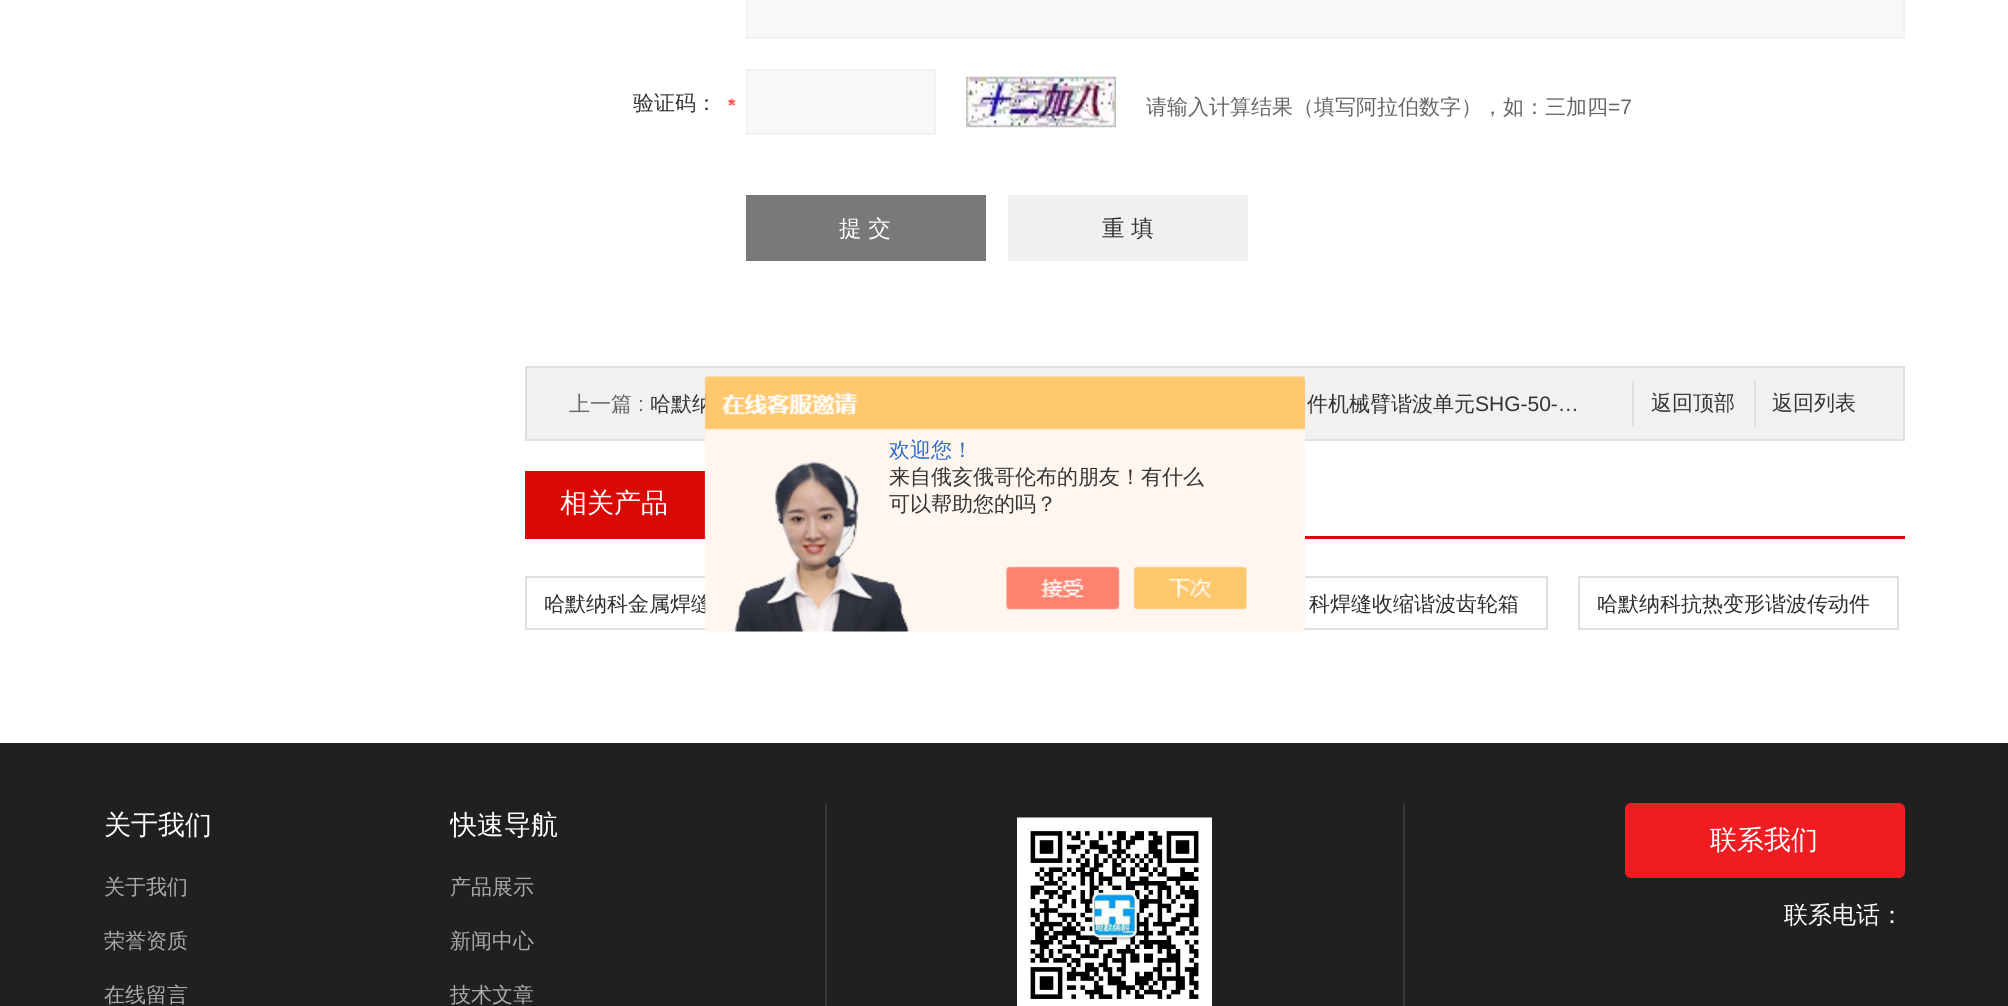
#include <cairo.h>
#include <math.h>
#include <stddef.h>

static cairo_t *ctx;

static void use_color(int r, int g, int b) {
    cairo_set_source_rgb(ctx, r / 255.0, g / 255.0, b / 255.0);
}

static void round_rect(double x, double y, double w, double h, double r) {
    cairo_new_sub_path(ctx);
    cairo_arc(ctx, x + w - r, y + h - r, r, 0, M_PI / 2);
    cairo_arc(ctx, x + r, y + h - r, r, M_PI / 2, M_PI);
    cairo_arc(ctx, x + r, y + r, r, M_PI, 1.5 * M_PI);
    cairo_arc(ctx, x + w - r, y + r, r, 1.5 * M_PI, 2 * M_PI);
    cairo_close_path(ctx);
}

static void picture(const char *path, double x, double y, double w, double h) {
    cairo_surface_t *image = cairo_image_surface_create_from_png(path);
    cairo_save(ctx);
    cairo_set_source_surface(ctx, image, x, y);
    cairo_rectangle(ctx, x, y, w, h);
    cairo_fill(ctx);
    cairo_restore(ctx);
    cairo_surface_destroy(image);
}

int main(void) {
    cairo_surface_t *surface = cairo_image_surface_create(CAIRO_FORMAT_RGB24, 2008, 1006);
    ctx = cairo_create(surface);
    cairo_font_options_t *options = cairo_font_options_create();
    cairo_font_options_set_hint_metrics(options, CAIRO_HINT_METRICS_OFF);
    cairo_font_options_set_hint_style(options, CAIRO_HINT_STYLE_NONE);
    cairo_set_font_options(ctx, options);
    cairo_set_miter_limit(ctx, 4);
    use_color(255, 255, 255);
    cairo_paint(ctx);
    use_color(248, 248, 248);
    cairo_rectangle(ctx, 747, -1, 1157, 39);
    cairo_fill_preserve(ctx);
    use_color(241, 241, 241);
    cairo_stroke(ctx);
    picture("img1.png", 727, 98, 9, 8);
    cairo_select_font_face(ctx, "WenQuanYi Zen Hei Medium", CAIRO_FONT_SLANT_NORMAL, CAIRO_FONT_WEIGHT_NORMAL);
    cairo_set_font_size(ctx, 21);
    use_color(51, 51, 51);
    cairo_move_to(ctx, 633, 110);
    cairo_show_text(ctx, "验证码：");
    use_color(248, 248, 248);
    cairo_rectangle(ctx, 747, 70, 188, 64);
    cairo_fill_preserve(ctx);
    use_color(241, 241, 241);
    cairo_stroke(ctx);
    picture("img2.png", 966, 76, 150, 52);
    use_color(102, 102, 102);
    cairo_move_to(ctx, 1146, 114);
    cairo_show_text(ctx, "请输入计算结果（填写阿拉伯数字），如：三加四");
    cairo_select_font_face(ctx, "Liberation Sans", CAIRO_FONT_SLANT_NORMAL, CAIRO_FONT_WEIGHT_NORMAL);
    cairo_move_to(ctx, 1608, 114);
    cairo_show_text(ctx, "=7");
    use_color(121, 121, 121);
    cairo_rectangle(ctx, 746, 195, 240, 66);
    cairo_fill(ctx);
    cairo_select_font_face(ctx, "WenQuanYi Zen Hei Medium", CAIRO_FONT_SLANT_NORMAL, CAIRO_FONT_WEIGHT_NORMAL);
    cairo_set_font_size(ctx, 22.5);
    use_color(255, 255, 255);
    cairo_move_to(ctx, 839, 236);
    cairo_show_text(ctx, "提 交");
    use_color(240, 240, 240);
    cairo_rectangle(ctx, 1008, 195, 240, 66);
    cairo_fill(ctx);
    use_color(51, 51, 51);
    cairo_move_to(ctx, 1102, 236);
    cairo_show_text(ctx, "重 填");
    use_color(241, 241, 241);
    cairo_rectangle(ctx, 526, 367, 1378, 73);
    cairo_fill_preserve(ctx);
    use_color(223, 223, 223);
    cairo_stroke(ctx);
    cairo_set_font_size(ctx, 21);
    use_color(102, 102, 102);
    cairo_move_to(ctx, 569, 411);
    cairo_show_text(ctx, "上一篇");
    cairo_select_font_face(ctx, "Liberation Sans", CAIRO_FONT_SLANT_NORMAL, CAIRO_FONT_WEIGHT_NORMAL);
    cairo_move_to(ctx, 638, 411);
    cairo_show_text(ctx, ":");
    cairo_select_font_face(ctx, "WenQuanYi Zen Hei Medium", CAIRO_FONT_SLANT_NORMAL, CAIRO_FONT_WEIGHT_NORMAL);
    use_color(51, 51, 51);
    cairo_move_to(ctx, 650, 411);
    cairo_show_text(ctx, "哈默纳");
    cairo_move_to(ctx, 1307, 411);
    cairo_show_text(ctx, "件机械臂谐波单元");
    cairo_select_font_face(ctx, "Liberation Sans", CAIRO_FONT_SLANT_NORMAL, CAIRO_FONT_WEIGHT_NORMAL);
    cairo_move_to(ctx, 1475, 411);
    cairo_show_text(ctx, "SHG-50-…");
    use_color(223, 223, 223);
    cairo_rectangle(ctx, 1632, 381, 2, 45);
    cairo_fill(ctx);
    cairo_select_font_face(ctx, "WenQuanYi Zen Hei Medium", CAIRO_FONT_SLANT_NORMAL, CAIRO_FONT_WEIGHT_NORMAL);
    use_color(51, 51, 51);
    cairo_move_to(ctx, 1651, 410);
    cairo_show_text(ctx, "返回顶部");
    use_color(223, 223, 223);
    cairo_rectangle(ctx, 1754, 381, 2, 45);
    cairo_fill(ctx);
    use_color(51, 51, 51);
    cairo_move_to(ctx, 1772, 410);
    cairo_show_text(ctx, "返回列表");
    use_color(218, 9, 3);
    cairo_rectangle(ctx, 525, 536, 1380, 3);
    cairo_fill(ctx);
    cairo_rectangle(ctx, 525, 471, 180, 65);
    cairo_fill(ctx);
    cairo_set_font_size(ctx, 27);
    use_color(255, 255, 255);
    cairo_move_to(ctx, 560, 512);
    cairo_show_text(ctx, "相关产品");
    cairo_rectangle(ctx, 526, 577, 319, 52);
    use_color(223, 223, 223);
    cairo_stroke(ctx);
    cairo_set_font_size(ctx, 21);
    use_color(45, 45, 46);
    cairo_move_to(ctx, 544, 611);
    cairo_show_text(ctx, "哈默纳科金属焊缝");
    cairo_rectangle(ctx, 1228, 577, 319, 52);
    use_color(223, 223, 223);
    cairo_stroke(ctx);
    use_color(45, 45, 46);
    cairo_move_to(ctx, 1309, 611);
    cairo_show_text(ctx, "科焊缝收缩谐波齿轮箱");
    cairo_rectangle(ctx, 1579, 577, 319, 52);
    use_color(223, 223, 223);
    cairo_stroke(ctx);
    use_color(45, 45, 46);
    cairo_move_to(ctx, 1597, 611);
    cairo_show_text(ctx, "哈默纳科抗热变形谐波传动件");
    picture("img3.png", 704, 376, 601, 256);
    use_color(46, 110, 198);
    cairo_move_to(ctx, 889, 457);
    cairo_show_text(ctx, "欢迎您！");
    use_color(51, 51, 51);
    cairo_move_to(ctx, 889, 484);
    cairo_show_text(ctx, "来自俄亥俄哥伦布的朋友！有什么");
    cairo_move_to(ctx, 889, 511);
    cairo_show_text(ctx, "可以帮助您的吗？");
    use_color(32, 32, 32);
    cairo_rectangle(ctx, 0, 743, 2008, 263);
    cairo_fill(ctx);
    cairo_set_font_size(ctx, 27);
    use_color(255, 255, 255);
    cairo_move_to(ctx, 104, 834);
    cairo_show_text(ctx, "关于我们");
    cairo_set_font_size(ctx, 21);
    use_color(170, 170, 170);
    cairo_move_to(ctx, 104, 894);
    cairo_show_text(ctx, "关于我们");
    cairo_move_to(ctx, 104, 948);
    cairo_show_text(ctx, "荣誉资质");
    cairo_move_to(ctx, 104, 1002);
    cairo_show_text(ctx, "在线留言");
    cairo_save(ctx);
    cairo_rectangle(ctx, 450, 803, 288, 45);
    cairo_clip(ctx);
    cairo_set_font_size(ctx, 27);
    use_color(255, 255, 255);
    cairo_move_to(ctx, 450, 834);
    cairo_show_text(ctx, "快速导航");
    cairo_restore(ctx);
    cairo_move_to(ctx, 450, 894);
    cairo_show_text(ctx, "产品展示");
    cairo_move_to(ctx, 450, 948);
    cairo_show_text(ctx, "新闻中心");
    cairo_move_to(ctx, 450, 1002);
    cairo_show_text(ctx, "技术文章");
    use_color(54, 54, 54);
    cairo_rectangle(ctx, 1403, 803, 2, 203);
    cairo_fill(ctx);
    cairo_rectangle(ctx, 825, 803, 2, 203);
    cairo_fill(ctx);
    picture("img4.png", 1017, 817, 195, 189);
    use_color(239, 28, 34);
    round_rect(1625, 803, 280, 75, 6);
    cairo_fill(ctx);
    cairo_set_font_size(ctx, 27);
    use_color(255, 255, 255);
    cairo_move_to(ctx, 1710, 849);
    cairo_show_text(ctx, "联系我们");
    cairo_set_font_size(ctx, 24);
    cairo_move_to(ctx, 1784, 923);
    cairo_show_text(ctx, "联系电话：");
    cairo_surface_write_to_png(surface, "result.png");
    cairo_font_options_destroy(options);
    cairo_destroy(ctx);
    cairo_surface_destroy(surface);
    return 0;
}
